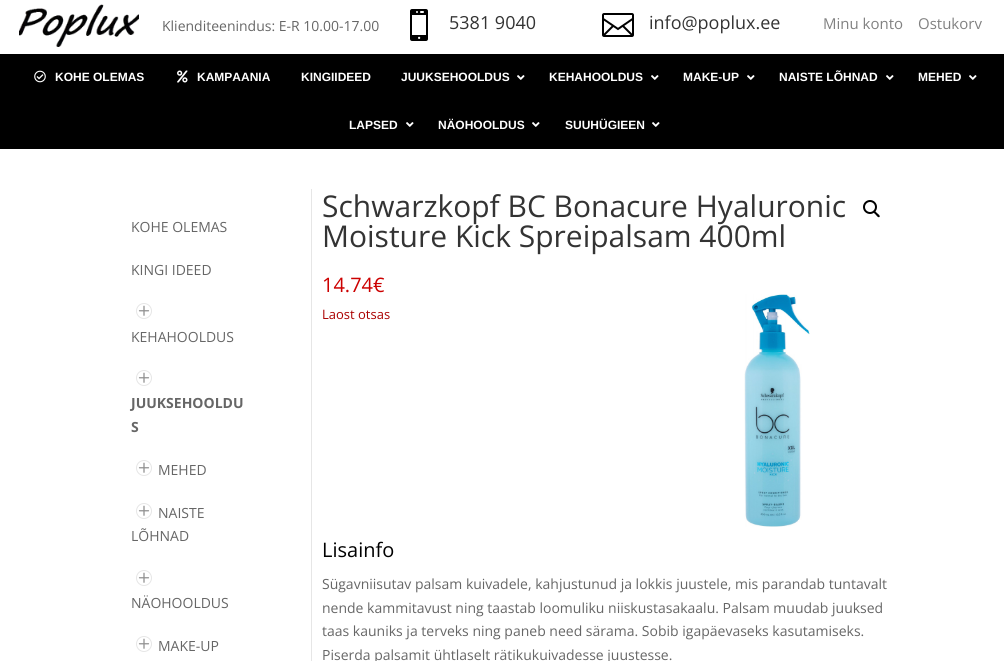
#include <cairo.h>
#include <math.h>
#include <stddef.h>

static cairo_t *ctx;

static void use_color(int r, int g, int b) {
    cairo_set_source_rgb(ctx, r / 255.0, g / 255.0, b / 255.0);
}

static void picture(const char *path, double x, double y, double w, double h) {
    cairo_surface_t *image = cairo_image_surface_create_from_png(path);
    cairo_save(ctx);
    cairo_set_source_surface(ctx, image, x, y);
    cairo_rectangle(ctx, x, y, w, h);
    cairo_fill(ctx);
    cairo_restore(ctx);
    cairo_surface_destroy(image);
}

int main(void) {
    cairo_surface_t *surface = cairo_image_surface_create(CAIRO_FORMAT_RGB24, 1004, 661);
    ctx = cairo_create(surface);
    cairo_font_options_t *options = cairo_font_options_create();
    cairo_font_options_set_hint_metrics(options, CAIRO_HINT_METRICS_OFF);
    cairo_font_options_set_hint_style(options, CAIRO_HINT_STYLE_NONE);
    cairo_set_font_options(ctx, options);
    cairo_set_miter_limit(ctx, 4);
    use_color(255, 255, 255);
    cairo_paint(ctx);
    picture("img1.png", 19, 4, 120, 43);
    cairo_select_font_face(ctx, "Open Sans", CAIRO_FONT_SLANT_NORMAL, CAIRO_FONT_WEIGHT_NORMAL);
    cairo_set_font_size(ctx, 14);
    use_color(102, 102, 102);
    cairo_move_to(ctx, 162, 31);
    cairo_show_text(ctx, "Klienditeenindus: E-R 10.00-17.00");
    picture("img2.png", 410, 9, 18, 32);
    cairo_set_font_size(ctx, 18);
    use_color(51, 51, 51);
    cairo_move_to(ctx, 449, 29);
    cairo_show_text(ctx, "5381 9040");
    picture("img3.png", 602, 13, 32, 24);
    cairo_move_to(ctx, 649, 29);
    cairo_show_text(ctx, "info@poplux.ee");
    cairo_set_font_size(ctx, 15);
    use_color(129, 129, 129);
    cairo_move_to(ctx, 823, 29);
    cairo_show_text(ctx, "Minu konto");
    cairo_move_to(ctx, 918, 29);
    cairo_show_text(ctx, "Ostukorv");
    use_color(0, 0, 0);
    cairo_rectangle(ctx, 0, 54, 1004, 95);
    cairo_fill(ctx);
    picture("img4.png", 34, 70, 12, 13);
    cairo_select_font_face(ctx, "Liberation Sans", CAIRO_FONT_SLANT_NORMAL, CAIRO_FONT_WEIGHT_BOLD);
    cairo_set_font_size(ctx, 12);
    use_color(255, 255, 255);
    cairo_move_to(ctx, 55, 81);
    cairo_show_text(ctx, "KOHE OLEMAS");
    picture("img5.png", 177, 70, 11, 13);
    cairo_move_to(ctx, 197, 81);
    cairo_show_text(ctx, "KAMPAANIA");
    cairo_move_to(ctx, 301, 81);
    cairo_show_text(ctx, "KINGIIDEED");
    cairo_move_to(ctx, 401, 81);
    cairo_show_text(ctx, "JUUKSEHOOLDUS");
    picture("img6.png", 517, 75, 8, 5);
    cairo_move_to(ctx, 549, 81);
    cairo_show_text(ctx, "KEHAHOOLDUS");
    picture("img6.png", 651, 75, 8, 5);
    cairo_move_to(ctx, 683, 81);
    cairo_show_text(ctx, "MAKE-UP");
    picture("img6.png", 747, 75, 8, 5);
    cairo_move_to(ctx, 779, 81);
    cairo_show_text(ctx, "NAISTE LÕHNAD");
    picture("img6.png", 886, 75, 8, 5);
    cairo_move_to(ctx, 918, 81);
    cairo_show_text(ctx, "MEHED");
    picture("img6.png", 969, 75, 8, 5);
    cairo_move_to(ctx, 349, 129);
    cairo_show_text(ctx, "LAPSED");
    picture("img6.png", 406, 122, 8, 5);
    cairo_move_to(ctx, 438, 129);
    cairo_show_text(ctx, "NÄOHOOLDUS");
    picture("img6.png", 532, 122, 8, 5);
    cairo_move_to(ctx, 565, 129);
    cairo_show_text(ctx, "SUUHÜGIEEN");
    picture("img6.png", 652, 122, 8, 5);
    use_color(230, 230, 230);
    cairo_rectangle(ctx, 311, 189, 1, 472);
    cairo_fill(ctx);
    cairo_select_font_face(ctx, "Open Sans", CAIRO_FONT_SLANT_NORMAL, CAIRO_FONT_WEIGHT_NORMAL);
    cairo_set_font_size(ctx, 14);
    use_color(102, 102, 102);
    cairo_move_to(ctx, 131, 232);
    cairo_show_text(ctx, "KOHE OLEMAS");
    cairo_move_to(ctx, 131, 275);
    cairo_show_text(ctx, "KINGI IDEED");
    cairo_new_path(ctx);
    cairo_arc(ctx, 144, 311, 7.5, 0, 2 * M_PI);
    use_color(230, 230, 230);
    cairo_set_line_width(ctx, 1);
    cairo_stroke(ctx);
    picture("img7.png", 138, 305, 12, 11);
    use_color(102, 102, 102);
    cairo_move_to(ctx, 131, 342);
    cairo_show_text(ctx, "KEHAHOOLDUS");
    cairo_new_path(ctx);
    cairo_arc(ctx, 144, 378, 7.5, 0, 2 * M_PI);
    use_color(230, 230, 230);
    cairo_stroke(ctx);
    picture("img7.png", 138, 372, 12, 11);
    cairo_select_font_face(ctx, "Open Sans", CAIRO_FONT_SLANT_NORMAL, CAIRO_FONT_WEIGHT_BOLD);
    use_color(102, 102, 102);
    cairo_move_to(ctx, 131, 408);
    cairo_show_text(ctx, "JUUKSEHOOLDU");
    cairo_move_to(ctx, 131, 432);
    cairo_show_text(ctx, "S");
    cairo_new_path(ctx);
    cairo_arc(ctx, 144, 468, 7.5, 0, 2 * M_PI);
    use_color(230, 230, 230);
    cairo_stroke(ctx);
    picture("img7.png", 138, 462, 12, 11);
    cairo_select_font_face(ctx, "Open Sans", CAIRO_FONT_SLANT_NORMAL, CAIRO_FONT_WEIGHT_NORMAL);
    use_color(102, 102, 102);
    cairo_move_to(ctx, 158, 475);
    cairo_show_text(ctx, "MEHED");
    cairo_new_path(ctx);
    cairo_arc(ctx, 144, 511, 7.5, 0, 2 * M_PI);
    use_color(230, 230, 230);
    cairo_stroke(ctx);
    picture("img7.png", 138, 505, 12, 11);
    use_color(102, 102, 102);
    cairo_move_to(ctx, 158, 518);
    cairo_show_text(ctx, "NAISTE");
    cairo_move_to(ctx, 131, 541);
    cairo_show_text(ctx, "LÕHNAD");
    cairo_new_path(ctx);
    cairo_arc(ctx, 144, 578, 7.5, 0, 2 * M_PI);
    use_color(230, 230, 230);
    cairo_stroke(ctx);
    picture("img7.png", 138, 572, 12, 11);
    use_color(102, 102, 102);
    cairo_move_to(ctx, 131, 608);
    cairo_show_text(ctx, "NÄOHOOLDUS");
    cairo_new_path(ctx);
    cairo_arc(ctx, 144, 644, 7.5, 0, 2 * M_PI);
    use_color(230, 230, 230);
    cairo_stroke(ctx);
    picture("img7.png", 138, 638, 12, 11);
    use_color(102, 102, 102);
    cairo_move_to(ctx, 158, 651);
    cairo_show_text(ctx, "MAKE-UP");
    cairo_set_font_size(ctx, 30);
    use_color(51, 51, 51);
    cairo_move_to(ctx, 322, 217);
    cairo_show_text(ctx, "Schwarzkopf BC Bonacure Hyaluronic");
    cairo_move_to(ctx, 322, 247);
    cairo_show_text(ctx, "Moisture Kick Spreipalsam 400ml");
    cairo_set_font_size(ctx, 20);
    use_color(204, 0, 0);
    cairo_move_to(ctx, 322, 292);
    cairo_show_text(ctx, "14.74€");
    cairo_new_path(ctx);
    cairo_arc(ctx, 870, 207, 6, 0, 2 * M_PI);
    use_color(0, 0, 0);
    cairo_set_line_width(ctx, 2);
    cairo_stroke(ctx);
    cairo_new_path(ctx);
    cairo_move_to(ctx, 873.5, 211);
    cairo_curve_to(ctx, 875, 210, 876.5, 213, 877.5, 213.5);
    cairo_curve_to(ctx, 878, 214, 880.5, 215.5, 879.5, 217);
    cairo_curve_to(ctx, 878, 218, 876.5, 215.5, 876, 215);
    cairo_curve_to(ctx, 875.5, 214, 872.5, 212.5, 873.5, 211);
    cairo_close_path(ctx);
    cairo_fill(ctx);
    picture("img8.png", 744, 294, 66, 233);
    cairo_set_font_size(ctx, 13);
    use_color(170, 0, 0);
    cairo_move_to(ctx, 322, 319);
    cairo_show_text(ctx, "Laost otsas");
    cairo_set_font_size(ctx, 20);
    use_color(0, 0, 0);
    cairo_move_to(ctx, 322, 557);
    cairo_show_text(ctx, "Lisainfo");
    cairo_set_font_size(ctx, 14);
    use_color(102, 102, 102);
    cairo_move_to(ctx, 322, 589);
    cairo_show_text(ctx, "Sügavniisutav palsam kuivadele, kahjustunud ja lokkis juustele, mis parandab tuntavalt");
    cairo_move_to(ctx, 322, 613);
    cairo_show_text(ctx, "nende kammitavust ning taastab loomuliku niiskustasakaalu. Palsam muudab juuksed");
    cairo_move_to(ctx, 322, 636);
    cairo_show_text(ctx, "taas kauniks ja terveks ning paneb need särama. Sobib igapäevaseks kasutamiseks.");
    cairo_move_to(ctx, 322, 660);
    cairo_show_text(ctx, "Piserda palsamit ühtlaselt rätikukuivadesse juustesse.");
    cairo_surface_write_to_png(surface, "result.png");
    cairo_font_options_destroy(options);
    cairo_destroy(ctx);
    cairo_surface_destroy(surface);
    return 0;
}
